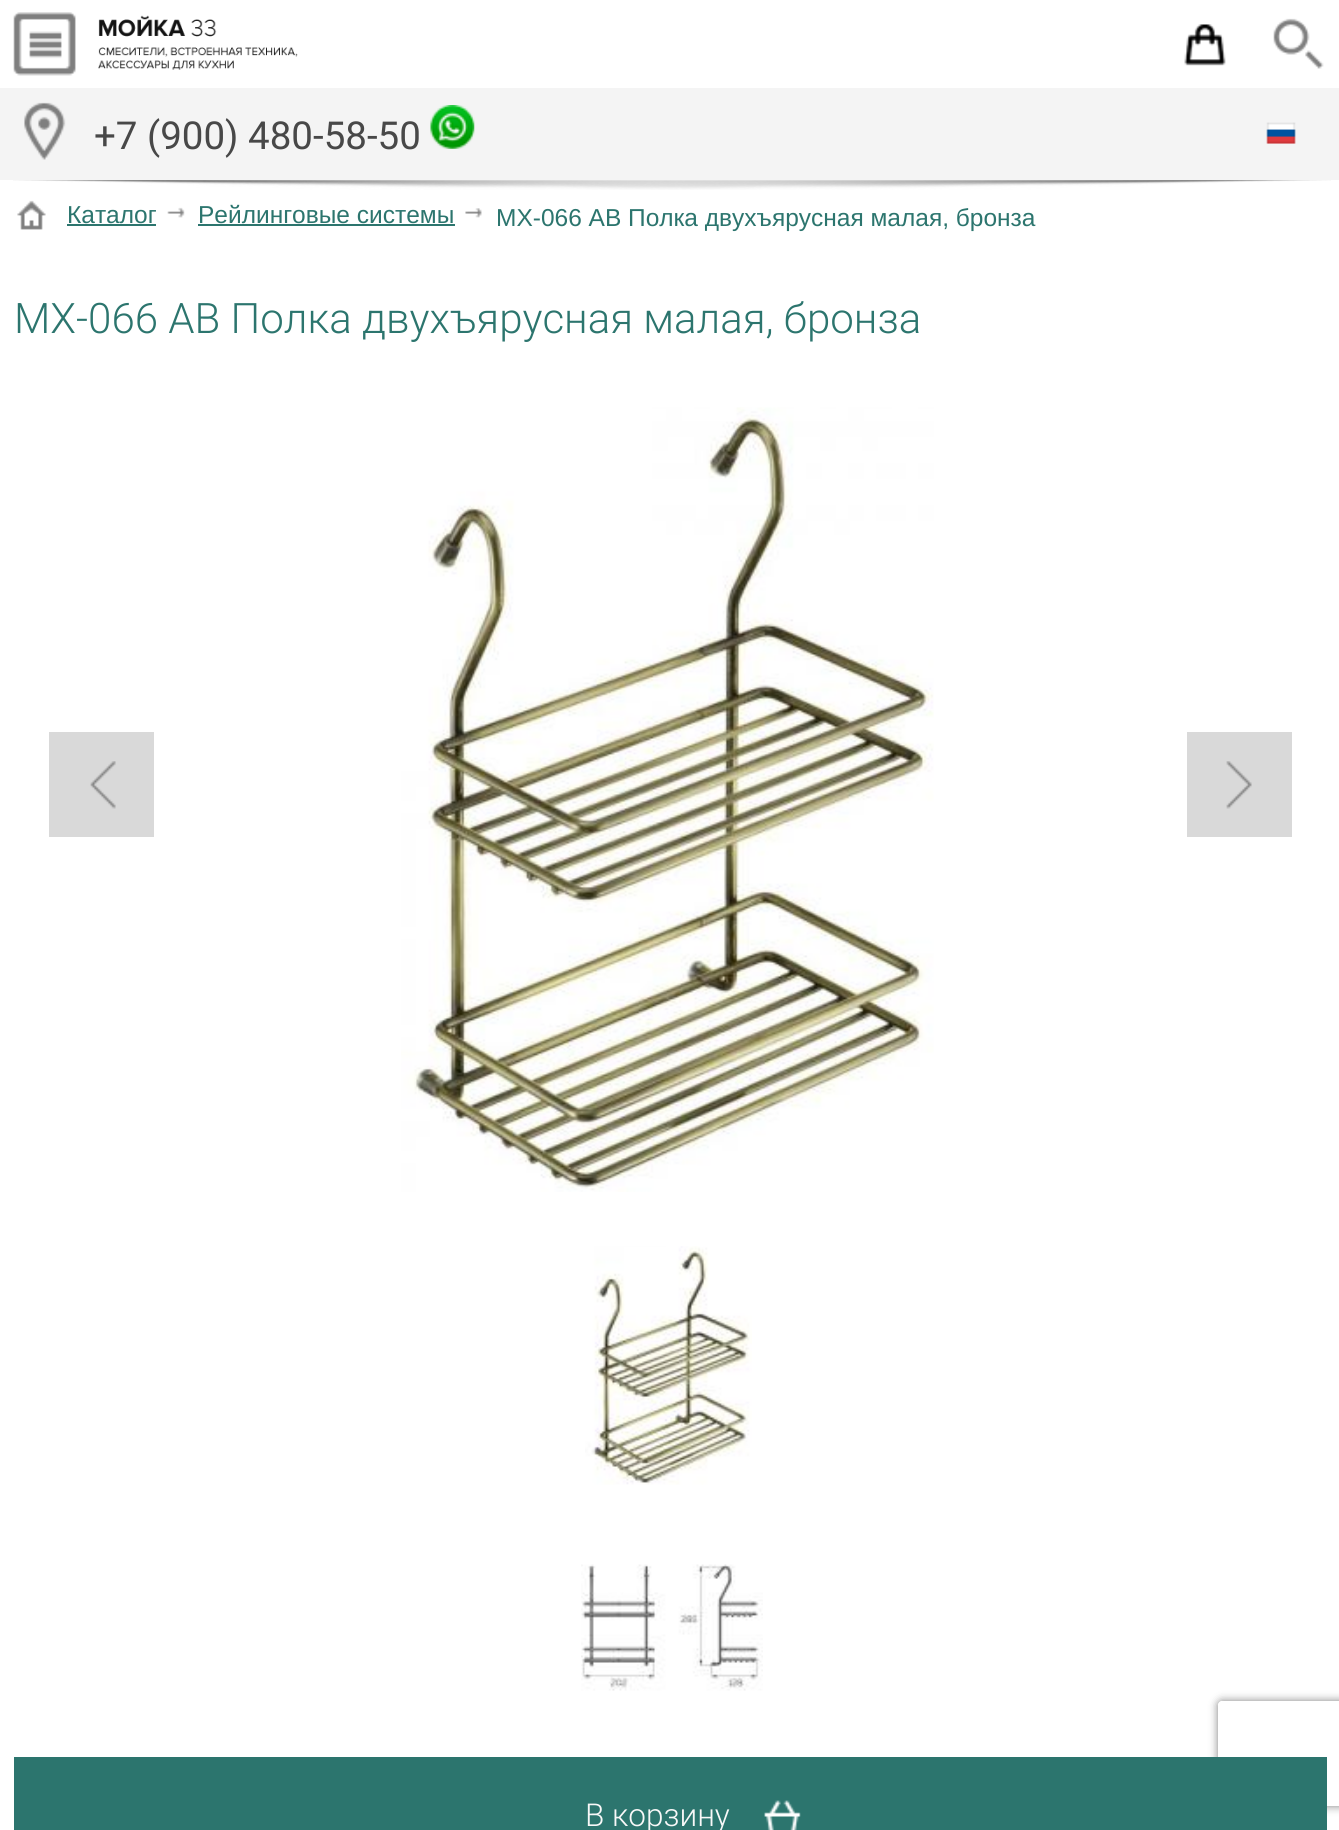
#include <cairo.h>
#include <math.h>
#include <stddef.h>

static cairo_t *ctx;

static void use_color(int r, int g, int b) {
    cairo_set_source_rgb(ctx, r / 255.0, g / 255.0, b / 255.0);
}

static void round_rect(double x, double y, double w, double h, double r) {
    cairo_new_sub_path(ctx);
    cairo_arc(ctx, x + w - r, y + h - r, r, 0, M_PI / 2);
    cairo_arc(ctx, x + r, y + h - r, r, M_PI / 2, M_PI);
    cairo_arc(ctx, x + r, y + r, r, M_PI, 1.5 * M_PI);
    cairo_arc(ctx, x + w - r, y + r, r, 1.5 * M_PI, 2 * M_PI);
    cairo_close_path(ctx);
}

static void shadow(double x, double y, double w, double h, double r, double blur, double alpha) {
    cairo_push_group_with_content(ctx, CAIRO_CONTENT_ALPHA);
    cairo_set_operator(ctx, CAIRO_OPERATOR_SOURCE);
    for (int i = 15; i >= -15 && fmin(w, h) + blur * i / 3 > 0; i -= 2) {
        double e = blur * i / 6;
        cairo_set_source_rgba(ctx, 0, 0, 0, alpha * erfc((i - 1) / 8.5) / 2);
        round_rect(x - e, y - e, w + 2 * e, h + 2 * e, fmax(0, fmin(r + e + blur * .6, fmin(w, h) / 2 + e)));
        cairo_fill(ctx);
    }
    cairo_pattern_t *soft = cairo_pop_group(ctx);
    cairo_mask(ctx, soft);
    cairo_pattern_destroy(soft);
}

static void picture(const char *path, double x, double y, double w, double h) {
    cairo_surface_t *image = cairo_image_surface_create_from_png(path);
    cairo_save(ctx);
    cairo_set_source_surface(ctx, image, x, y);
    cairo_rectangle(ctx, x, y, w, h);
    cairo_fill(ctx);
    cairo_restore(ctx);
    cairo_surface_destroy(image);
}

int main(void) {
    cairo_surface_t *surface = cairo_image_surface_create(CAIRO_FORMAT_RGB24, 1339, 1830);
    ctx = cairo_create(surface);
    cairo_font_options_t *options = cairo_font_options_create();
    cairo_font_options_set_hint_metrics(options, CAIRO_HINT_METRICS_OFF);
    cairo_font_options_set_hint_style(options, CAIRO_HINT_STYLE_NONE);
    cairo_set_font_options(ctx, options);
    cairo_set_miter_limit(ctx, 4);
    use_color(255, 255, 255);
    cairo_paint(ctx);
    picture("img1.png", 13, 12, 63, 64);
    picture("img2.png", 98, 15, 200, 55);
    picture("img3.png", 1184, 24, 42, 42);
    picture("img4.png", 1273, 18, 51, 51);
    use_color(244, 244, 244);
    cairo_rectangle(ctx, 0, 88, 1339, 92);
    cairo_fill(ctx);
    picture("img5.png", 24, 102, 42, 58);
    cairo_select_font_face(ctx, "Roboto", CAIRO_FONT_SLANT_NORMAL, CAIRO_FONT_WEIGHT_NORMAL);
    cairo_set_font_size(ctx, 38.5);
    use_color(72, 72, 72);
    cairo_move_to(ctx, 94, 149);
    cairo_show_text(ctx, "+7 (900) 480-58-50");
    picture("img6.png", 430, 105, 45, 44);
    picture("img7.png", 1266, 122, 30, 22);
    picture("img8.png", 13, 180, 1318, 10);
    picture("img9.png", 17, 200, 29, 30);
    cairo_select_font_face(ctx, "Liberation Sans", CAIRO_FONT_SLANT_NORMAL, CAIRO_FONT_WEIGHT_NORMAL);
    cairo_set_font_size(ctx, 24.5);
    use_color(44, 117, 110);
    cairo_move_to(ctx, 67, 223);
    cairo_show_text(ctx, "Каталог");
    cairo_rectangle(ctx, 67, 224, 89, 2);
    cairo_fill(ctx);
    picture("img10.png", 167, 207, 18, 11);
    cairo_move_to(ctx, 198, 223);
    cairo_show_text(ctx, "Рейлинговые системы");
    cairo_rectangle(ctx, 198, 224, 257, 2);
    cairo_fill(ctx);
    picture("img11.png", 465, 208, 17, 10);
    cairo_move_to(ctx, 496, 226);
    cairo_show_text(ctx, "MX-066 AB Полка двухъярусная малая, бронза");
    cairo_select_font_face(ctx, "Roboto Light", CAIRO_FONT_SLANT_NORMAL, CAIRO_FONT_WEIGHT_NORMAL);
    cairo_set_font_size(ctx, 42);
    cairo_move_to(ctx, 14, 333);
    cairo_show_text(ctx, "MX-066 AB Полка двухъярусная малая, бронза");
    picture("img12.png", 401, 407, 533, 785);
    picture("img13.png", 585, 1246, 167, 239);
    picture("img14.png", 581, 1564, 182, 127);
    cairo_save(ctx);
    cairo_set_fill_rule(ctx, CAIRO_FILL_RULE_EVEN_ODD);
    cairo_new_path(ctx);
    cairo_move_to(ctx, 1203, 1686);
    cairo_line_to(ctx, 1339, 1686);
    cairo_line_to(ctx, 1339, 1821);
    cairo_line_to(ctx, 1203, 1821);
    cairo_close_path(ctx);
    cairo_move_to(ctx, 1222, 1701);
    cairo_line_to(ctx, 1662, 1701);
    cairo_curve_to(ctx, 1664, 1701, 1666, 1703, 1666, 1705);
    cairo_line_to(ctx, 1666, 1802);
    cairo_curve_to(ctx, 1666, 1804, 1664, 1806, 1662, 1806);
    cairo_line_to(ctx, 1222, 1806);
    cairo_curve_to(ctx, 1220, 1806, 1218, 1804, 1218, 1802);
    cairo_line_to(ctx, 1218, 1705);
    cairo_curve_to(ctx, 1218, 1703, 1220, 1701, 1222, 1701);
    cairo_close_path(ctx);
    cairo_clip(ctx);
    use_color(128, 128, 128);
    shadow(1218, 1701, 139, 105, 4, 4.5, 1);
    cairo_restore(ctx);
    cairo_rectangle(ctx, 14, 1757, 1313, 73);
    cairo_fill(ctx);
    cairo_set_font_size(ctx, 31.5);
    use_color(248, 248, 248);
    cairo_move_to(ctx, 585, 1826);
    cairo_show_text(ctx, "В корзину");
    picture("img15.png", 764, 1800, 37, 30);
    use_color(217, 217, 217);
    cairo_rectangle(ctx, 49, 732, 105, 105);
    cairo_fill(ctx);
    picture("img16.png", 90, 761, 26, 48);
    cairo_rectangle(ctx, 1187, 732, 105, 105);
    cairo_fill(ctx);
    picture("img17.png", 1226, 761, 26, 48);
    cairo_surface_write_to_png(surface, "result.png");
    cairo_font_options_destroy(options);
    cairo_destroy(ctx);
    cairo_surface_destroy(surface);
    return 0;
}
